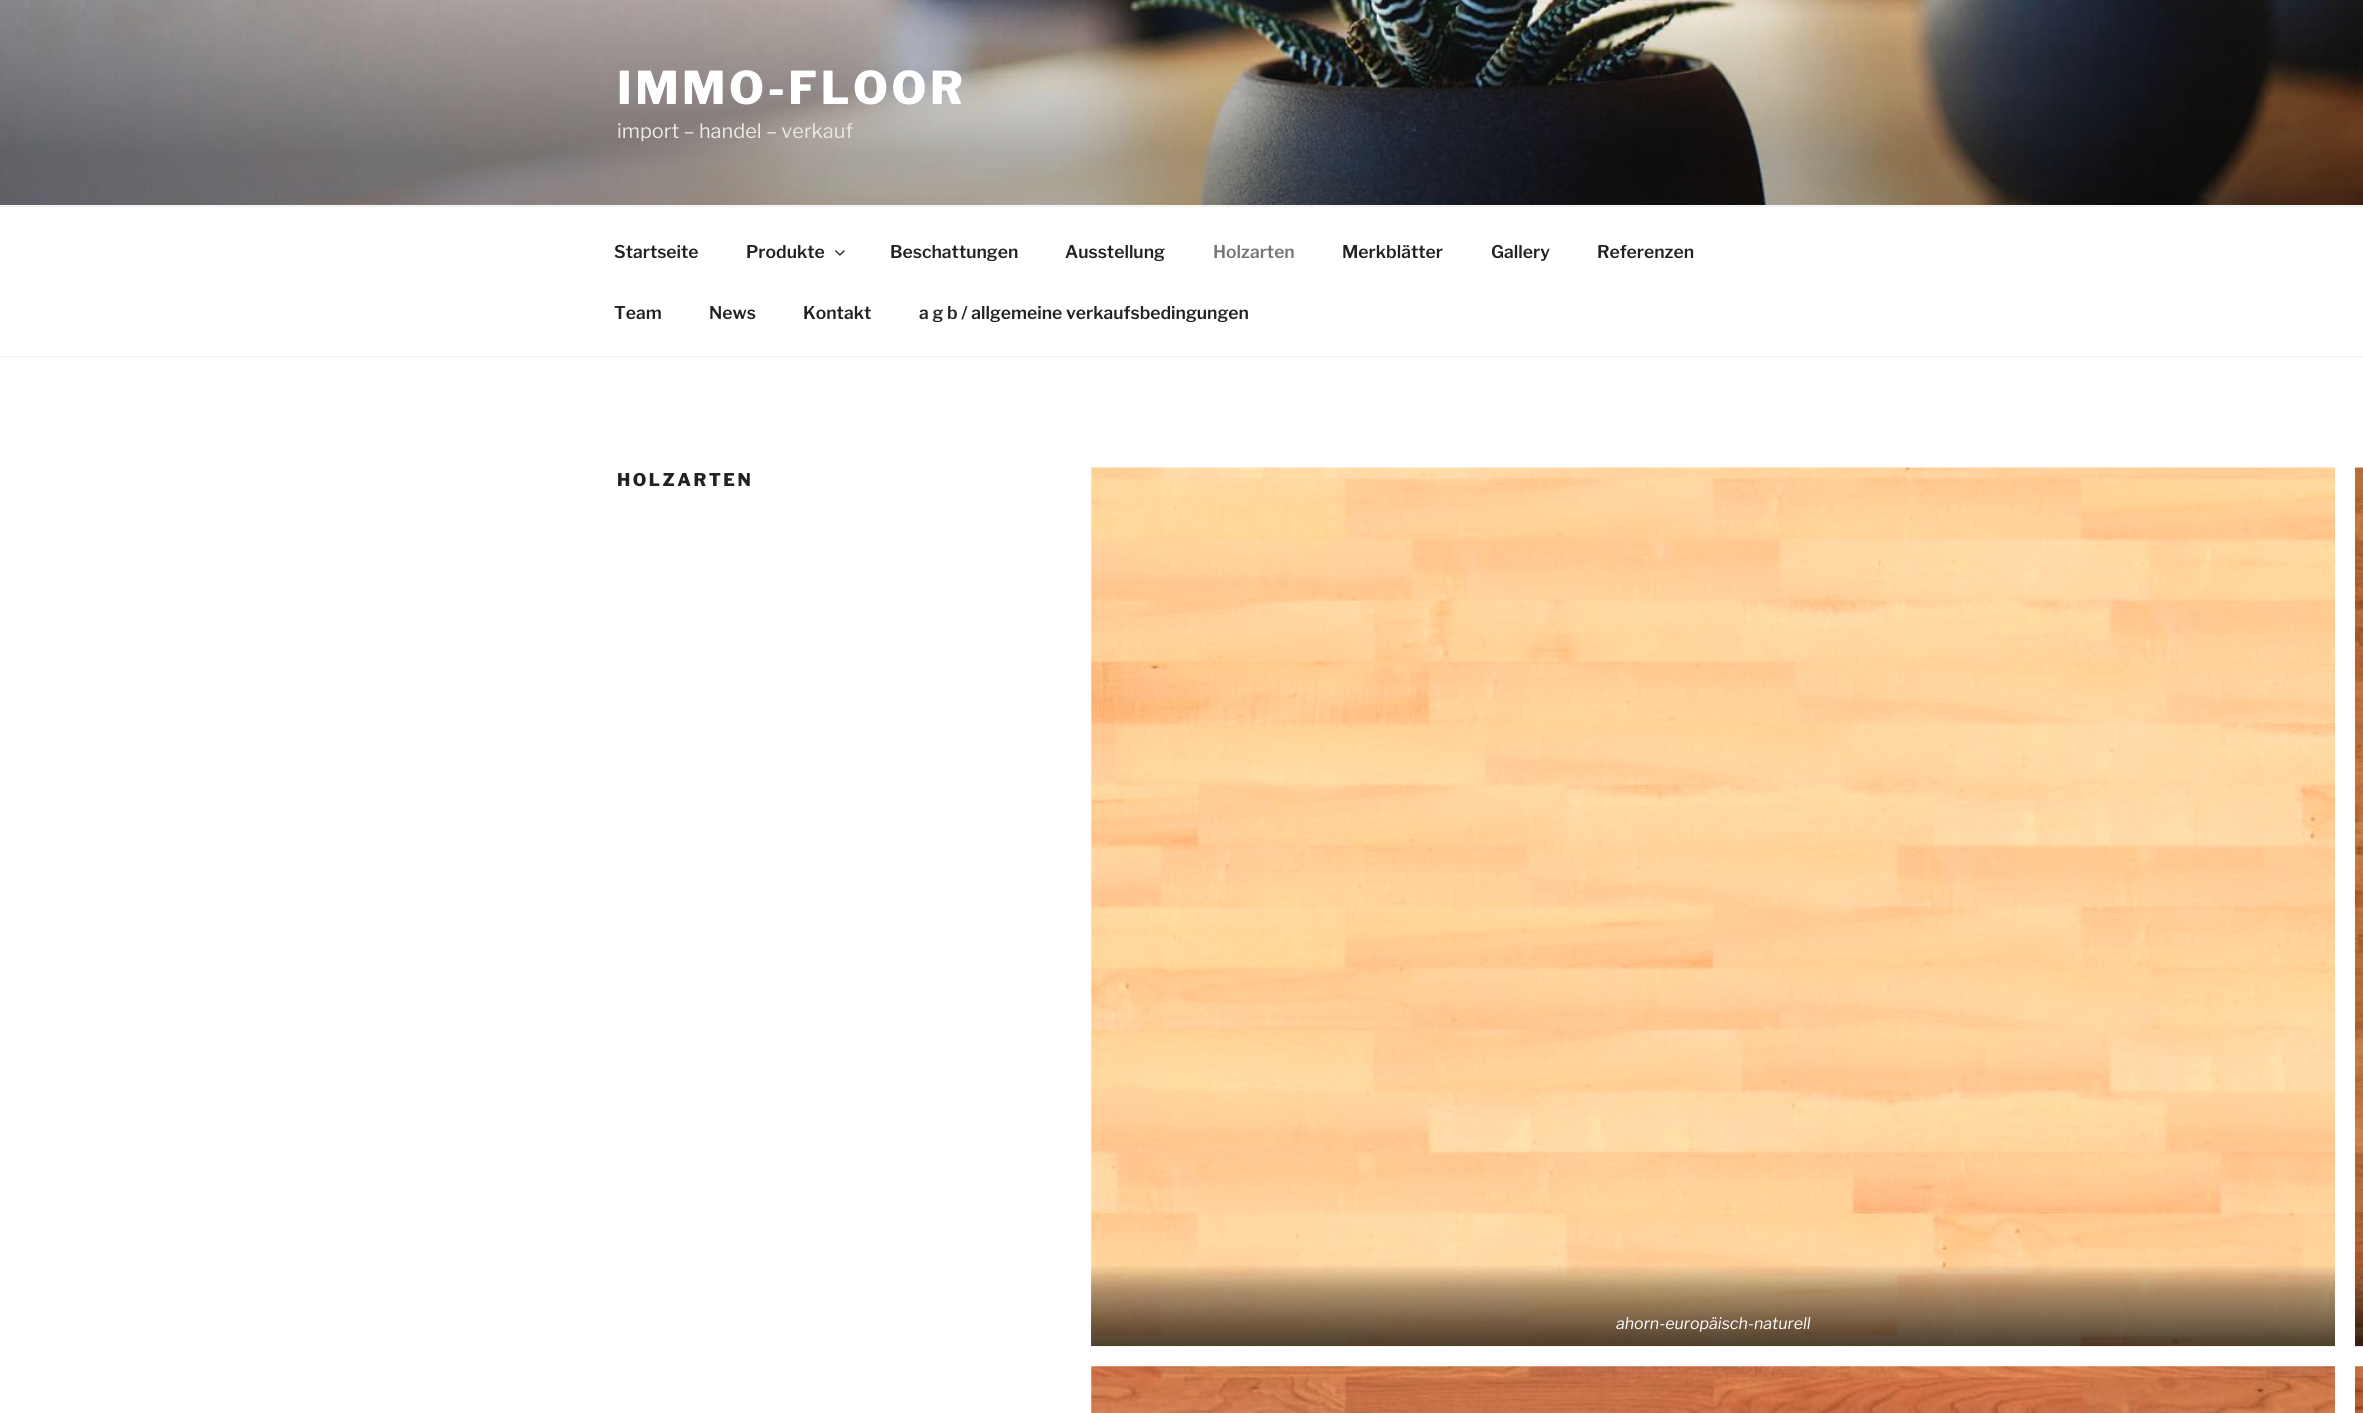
#include <cairo.h>
#include <math.h>
#include <stddef.h>

static cairo_t *ctx;

static void use_color(int r, int g, int b) {
    cairo_set_source_rgb(ctx, r / 255.0, g / 255.0, b / 255.0);
}

static void spaced_text(double x, double y, const char *s, double letter, double word) {
    cairo_move_to(ctx, x, y);
    while (*s) {
        char ch[5] = {0};
        int n = 0;
        do ch[n++] = *s++; while ((*s & 0xC0) == 0x80);
        cairo_show_text(ctx, ch);
        cairo_rel_move_to(ctx, letter + word * (*ch == ' '), 0);
    }
}

static void picture(const char *path, double x, double y, double w, double h) {
    cairo_surface_t *image = cairo_image_surface_create_from_png(path);
    cairo_save(ctx);
    cairo_set_source_surface(ctx, image, x, y);
    cairo_rectangle(ctx, x, y, w, h);
    cairo_fill(ctx);
    cairo_restore(ctx);
    cairo_surface_destroy(image);
}

int main(void) {
    cairo_surface_t *surface = cairo_image_surface_create(CAIRO_FORMAT_RGB24, 2363, 1413);
    ctx = cairo_create(surface);
    cairo_font_options_t *options = cairo_font_options_create();
    cairo_font_options_set_hint_metrics(options, CAIRO_HINT_METRICS_OFF);
    cairo_font_options_set_hint_style(options, CAIRO_HINT_STYLE_NONE);
    cairo_set_font_options(ctx, options);
    cairo_set_miter_limit(ctx, 4);
    cairo_pattern_t *gradient;
    use_color(255, 255, 255);
    cairo_paint(ctx);
    use_color(250, 250, 250);
    cairo_rectangle(ctx, 0, 205, 2363, 1);
    cairo_fill(ctx);
    picture("img1.png", 0, 0, 2363, 205);
    cairo_select_font_face(ctx, "Libre Franklin Thin", CAIRO_FONT_SLANT_NORMAL, CAIRO_FONT_WEIGHT_NORMAL);
    cairo_set_font_size(ctx, 45);
    use_color(255, 255, 255);
    spaced_text(617, 104, "IMMO-FLOOR", 3.6, 0);
    cairo_select_font_face(ctx, "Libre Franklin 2 Thin", CAIRO_FONT_SLANT_NORMAL, CAIRO_FONT_WEIGHT_NORMAL);
    cairo_set_font_size(ctx, 20);
    use_color(234, 232, 231);
    cairo_move_to(ctx, 617, 138);
    cairo_show_text(ctx, "import – handel – verkauf");
    use_color(238, 238, 238);
    cairo_rectangle(ctx, 0, 206, 2363, 1);
    cairo_fill(ctx);
    cairo_rectangle(ctx, 0, 356, 2363, 1);
    cairo_fill(ctx);
    cairo_select_font_face(ctx, "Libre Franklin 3 Thin", CAIRO_FONT_SLANT_NORMAL, CAIRO_FONT_WEIGHT_NORMAL);
    cairo_set_font_size(ctx, 17.5);
    use_color(34, 34, 34);
    cairo_move_to(ctx, 614, 258);
    cairo_show_text(ctx, "Startseite");
    cairo_move_to(ctx, 746, 258);
    cairo_show_text(ctx, "Produkte");
    picture("img2.png", 835, 250, 10, 6);
    cairo_move_to(ctx, 890, 258);
    cairo_show_text(ctx, "Beschattungen");
    cairo_move_to(ctx, 1065, 258);
    cairo_show_text(ctx, "Ausstellung");
    use_color(118, 118, 118);
    cairo_move_to(ctx, 1213, 258);
    cairo_show_text(ctx, "Holzarten");
    use_color(34, 34, 34);
    cairo_move_to(ctx, 1342, 258);
    cairo_show_text(ctx, "Merkblätter");
    cairo_move_to(ctx, 1491, 258);
    cairo_show_text(ctx, "Gallery");
    cairo_move_to(ctx, 1597, 258);
    cairo_show_text(ctx, "Referenzen");
    cairo_move_to(ctx, 614, 319);
    cairo_show_text(ctx, "Team");
    cairo_move_to(ctx, 709, 319);
    cairo_show_text(ctx, "News");
    cairo_move_to(ctx, 803, 319);
    cairo_show_text(ctx, "Kontakt");
    cairo_move_to(ctx, 919, 319);
    cairo_show_text(ctx, "a g b / allgemeine verkaufsbedingungen");
    cairo_select_font_face(ctx, "Libre Franklin Thin", CAIRO_FONT_SLANT_NORMAL, CAIRO_FONT_WEIGHT_NORMAL);
    spaced_text(617, 486, "HOLZARTEN", 2.5, 0);
    picture("img3.png", 1091, 467, 1244, 880);
    gradient = cairo_pattern_create_linear(1713, 1346, 1713, 1264);
    cairo_pattern_add_color_stop_rgba(gradient, 0, 0, 0, 0, 0.7);
    cairo_pattern_add_color_stop_rgba(gradient, 0.7, 0, 0, 0, 0.3);
    cairo_pattern_add_color_stop_rgba(gradient, 1, 0, 0, 0, 0);
    cairo_set_source(ctx, gradient);
    cairo_pattern_destroy(gradient);
    cairo_rectangle(ctx, 1091, 1266, 1244, 80);
    cairo_fill(ctx);
    cairo_select_font_face(ctx, "Libre Franklin Thin", CAIRO_FONT_SLANT_ITALIC, CAIRO_FONT_WEIGHT_NORMAL);
    cairo_set_font_size(ctx, 16);
    use_color(255, 255, 255);
    cairo_move_to(ctx, 1616, 1329);
    cairo_show_text(ctx, "ahorn-europäisch-naturell");
    picture("img4.png", 2355, 467, 8, 880);
    picture("img5.png", 1091, 1366, 1244, 47);
    picture("img6.png", 2355, 1366, 8, 47);
    cairo_surface_write_to_png(surface, "result.png");
    cairo_font_options_destroy(options);
    cairo_destroy(ctx);
    cairo_surface_destroy(surface);
    return 0;
}
